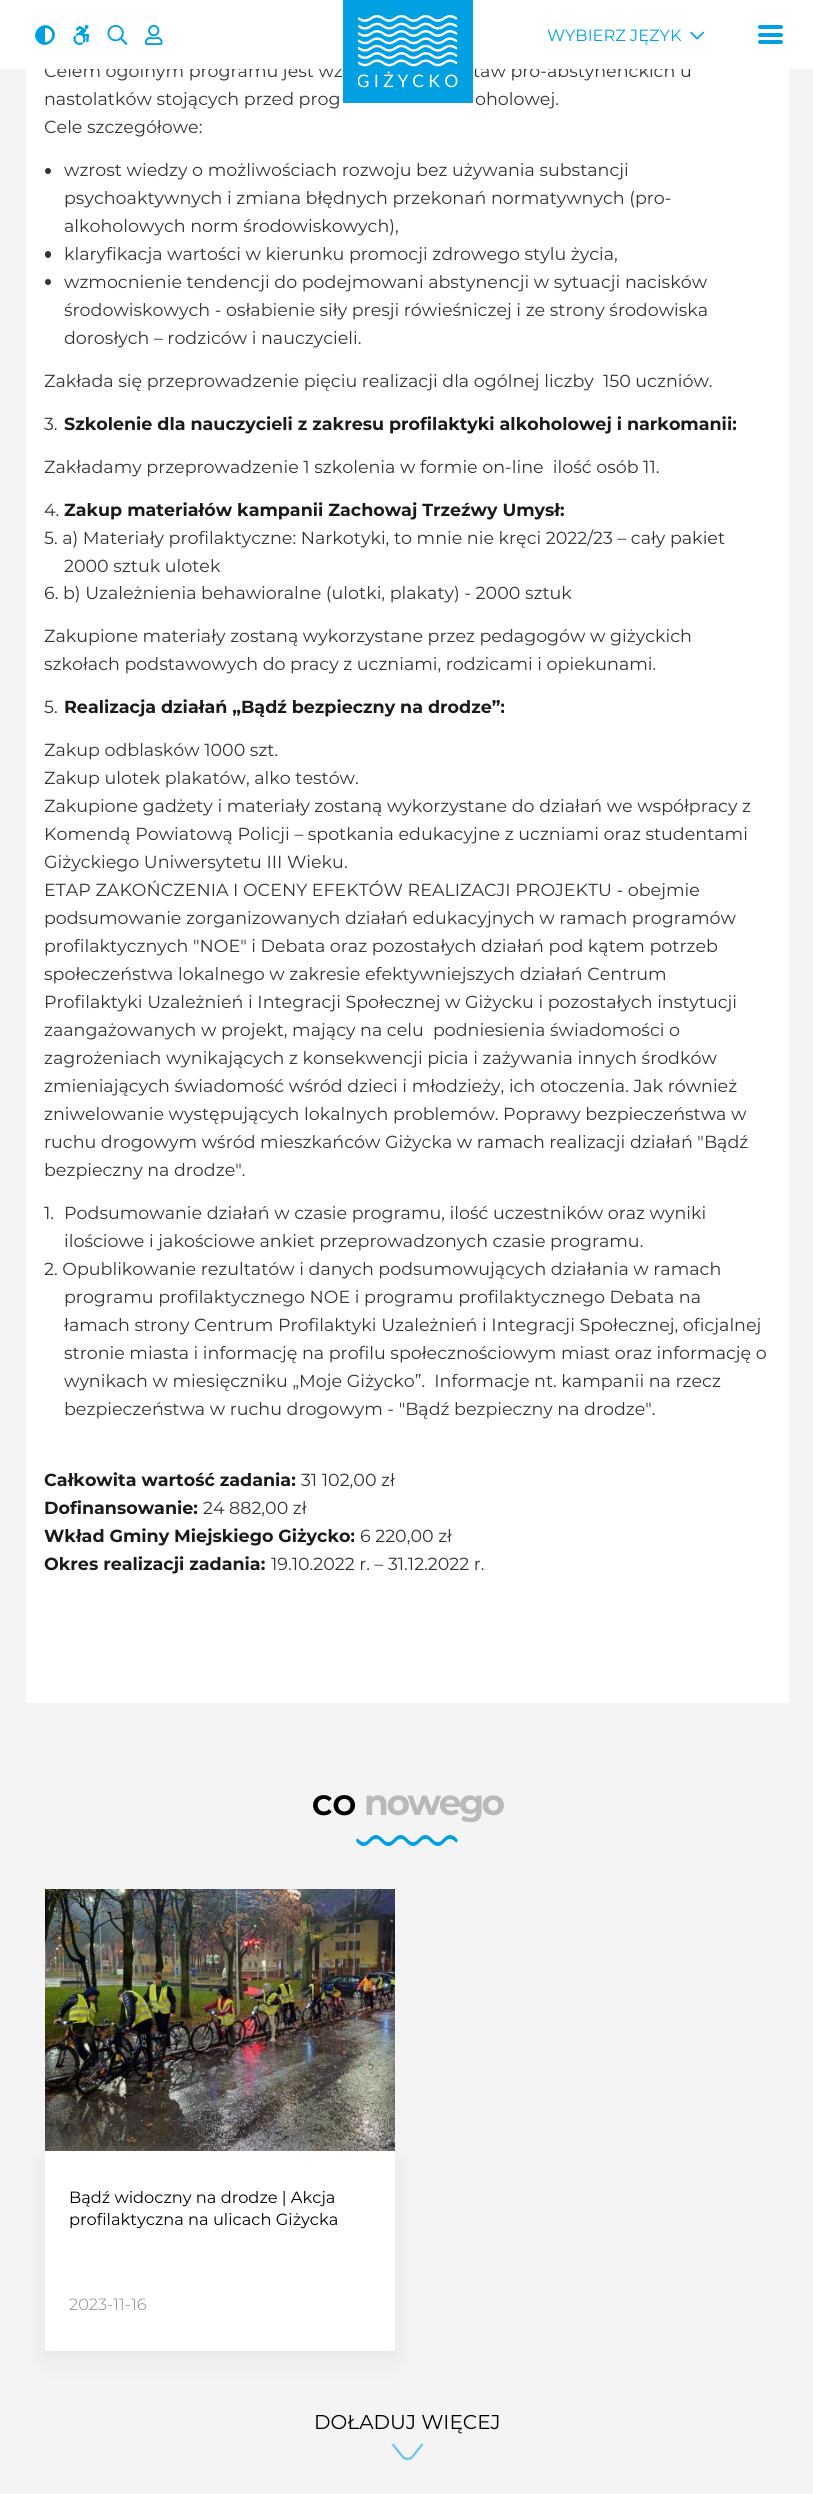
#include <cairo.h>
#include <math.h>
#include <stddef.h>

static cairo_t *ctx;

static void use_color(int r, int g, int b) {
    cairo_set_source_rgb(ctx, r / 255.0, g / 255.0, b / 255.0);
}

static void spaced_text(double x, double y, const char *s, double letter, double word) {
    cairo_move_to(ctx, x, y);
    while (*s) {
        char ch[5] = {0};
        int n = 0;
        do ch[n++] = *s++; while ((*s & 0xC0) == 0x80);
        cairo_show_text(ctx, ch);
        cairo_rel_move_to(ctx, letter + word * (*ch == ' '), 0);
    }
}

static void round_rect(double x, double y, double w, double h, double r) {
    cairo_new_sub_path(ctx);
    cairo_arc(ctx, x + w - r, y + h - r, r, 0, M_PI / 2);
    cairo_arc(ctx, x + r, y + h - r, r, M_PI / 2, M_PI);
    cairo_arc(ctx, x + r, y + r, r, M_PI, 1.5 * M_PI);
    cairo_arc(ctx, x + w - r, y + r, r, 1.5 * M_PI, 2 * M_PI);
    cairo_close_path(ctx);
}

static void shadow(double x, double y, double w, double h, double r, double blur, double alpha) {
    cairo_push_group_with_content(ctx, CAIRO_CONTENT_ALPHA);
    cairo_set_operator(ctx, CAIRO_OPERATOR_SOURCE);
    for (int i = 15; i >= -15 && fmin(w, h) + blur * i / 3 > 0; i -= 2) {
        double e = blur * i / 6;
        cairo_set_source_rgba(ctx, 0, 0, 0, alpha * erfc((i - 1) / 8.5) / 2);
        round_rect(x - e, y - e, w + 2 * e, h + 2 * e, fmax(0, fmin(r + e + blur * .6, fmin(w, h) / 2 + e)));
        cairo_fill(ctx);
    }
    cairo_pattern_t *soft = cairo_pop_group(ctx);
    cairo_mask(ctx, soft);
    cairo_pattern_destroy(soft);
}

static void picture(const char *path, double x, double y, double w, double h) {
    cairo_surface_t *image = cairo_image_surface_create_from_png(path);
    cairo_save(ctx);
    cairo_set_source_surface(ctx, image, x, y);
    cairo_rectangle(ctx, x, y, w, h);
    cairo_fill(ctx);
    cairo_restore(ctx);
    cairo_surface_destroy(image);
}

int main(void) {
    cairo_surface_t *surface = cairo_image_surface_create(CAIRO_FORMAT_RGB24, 813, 2494);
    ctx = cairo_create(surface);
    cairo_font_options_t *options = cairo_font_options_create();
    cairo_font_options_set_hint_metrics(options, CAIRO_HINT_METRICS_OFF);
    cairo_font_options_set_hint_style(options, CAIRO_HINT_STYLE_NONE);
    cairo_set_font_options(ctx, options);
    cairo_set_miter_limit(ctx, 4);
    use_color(244, 244, 244);
    cairo_paint(ctx);
    use_color(255, 255, 255);
    cairo_rectangle(ctx, 26, 69, 763, 1634);
    cairo_fill(ctx);
    cairo_select_font_face(ctx, "Montserrat", CAIRO_FONT_SLANT_NORMAL, CAIRO_FONT_WEIGHT_NORMAL);
    cairo_set_font_size(ctx, 17.5);
    use_color(51, 51, 51);
    cairo_move_to(ctx, 44, 77);
    cairo_show_text(ctx, "Celem ogólnym programu jest wz");
    cairo_move_to(ctx, 473, 77);
    cairo_show_text(ctx, "taw pro-abstynenckich u");
    use_color(255, 255, 255);
    cairo_rectangle(ctx, 0, 0, 813, 69);
    cairo_fill(ctx);
    use_color(0, 160, 227);
    cairo_new_path(ctx);
    cairo_move_to(ctx, 38, 42);
    cairo_curve_to(ctx, 29, 33, 43, 19, 52, 28);
    cairo_curve_to(ctx, 61, 37, 47, 51, 38, 42);
    cairo_close_path(ctx);
    cairo_move_to(ctx, 45, 42);
    cairo_curve_to(ctx, 54.5, 42, 54.5, 28, 45, 28);
    cairo_close_path(ctx);
    cairo_fill(ctx);
    picture("img1.png", 73, 25, 17, 20);
    picture("img2.png", 107, 25, 21, 20);
    picture("img3.png", 145, 25, 18, 20);
    cairo_rectangle(ctx, 343, 0, 130, 103);
    cairo_fill(ctx);
    picture("img4.png", 358, 15, 100, 73);
    cairo_set_font_size(ctx, 16.25);
    cairo_move_to(ctx, 547, 41);
    cairo_show_text(ctx, "WYBIERZ JĘZYK");
    picture("img5.png", 690, 31, 15, 9);
    round_rect(758, 33, 25, 4, 2);
    cairo_fill(ctx);
    round_rect(758, 25, 25, 4, 2);
    cairo_fill(ctx);
    round_rect(758, 40, 25, 4, 2);
    cairo_fill(ctx);
    cairo_set_font_size(ctx, 17.5);
    use_color(51, 51, 51);
    cairo_move_to(ctx, 44, 105);
    cairo_show_text(ctx, "nastolatków stojących przed prog");
    cairo_move_to(ctx, 475, 105);
    cairo_show_text(ctx, "oholowej.");
    cairo_move_to(ctx, 44, 133);
    cairo_show_text(ctx, "Cele szczegółowe:");
    cairo_new_path(ctx);
    cairo_arc(ctx, 48, 171, 3, 0, 2 * M_PI);
    cairo_fill(ctx);
    cairo_move_to(ctx, 64, 176);
    cairo_show_text(ctx, "wzrost wiedzy o możliwościach rozwoju bez używania substancji");
    cairo_move_to(ctx, 64, 204);
    cairo_show_text(ctx, "psychoaktywnych i zmiana błędnych przekonań normatywnych (pro-");
    cairo_move_to(ctx, 64, 232);
    cairo_show_text(ctx, "alkoholowych norm środowiskowych),");
    round_rect(45, 251, 6, 7, 3);
    cairo_fill(ctx);
    cairo_move_to(ctx, 64, 260);
    cairo_show_text(ctx, "klaryfikacja wartości w kierunku promocji zdrowego stylu życia,");
    cairo_new_path(ctx);
    cairo_arc(ctx, 48, 282, 3, 0, 2 * M_PI);
    cairo_fill(ctx);
    cairo_move_to(ctx, 64, 288);
    cairo_show_text(ctx, "wzmocnienie tendencji do podejmowani abstynencji w sytuacji nacisków");
    cairo_move_to(ctx, 64, 316);
    cairo_show_text(ctx, "środowiskowych - osłabienie siły presji rówieśniczej i ze strony środowiska");
    cairo_move_to(ctx, 64, 344);
    cairo_show_text(ctx, "dorosłych – rodziców i nauczycieli.");
    cairo_move_to(ctx, 44, 387);
    cairo_show_text(ctx, "Zakłada się przeprowadzenie pięciu realizacji dla ogólnej liczby  150 uczniów.");
    cairo_move_to(ctx, 44, 430);
    cairo_show_text(ctx, "3.");
    cairo_select_font_face(ctx, "Montserrat", CAIRO_FONT_SLANT_NORMAL, CAIRO_FONT_WEIGHT_BOLD);
    use_color(26, 26, 26);
    cairo_move_to(ctx, 64, 430);
    cairo_show_text(ctx, "Szkolenie dla nauczycieli z zakresu profilaktyki alkoholowej i narkomanii:");
    cairo_select_font_face(ctx, "Montserrat", CAIRO_FONT_SLANT_NORMAL, CAIRO_FONT_WEIGHT_NORMAL);
    use_color(51, 51, 51);
    cairo_move_to(ctx, 44, 473);
    cairo_show_text(ctx, "Zakładamy przeprowadzenie 1 szkolenia w formie on-line  ilość osób 11.");
    cairo_move_to(ctx, 44, 516);
    cairo_show_text(ctx, "4.");
    cairo_select_font_face(ctx, "Montserrat", CAIRO_FONT_SLANT_NORMAL, CAIRO_FONT_WEIGHT_BOLD);
    use_color(26, 26, 26);
    cairo_move_to(ctx, 64, 516);
    cairo_show_text(ctx, "Zakup materiałów kampanii Zachowaj Trzeźwy Umysł:");
    cairo_select_font_face(ctx, "Montserrat", CAIRO_FONT_SLANT_NORMAL, CAIRO_FONT_WEIGHT_NORMAL);
    use_color(51, 51, 51);
    cairo_move_to(ctx, 44, 544);
    cairo_show_text(ctx, "5. a) Materiały profilaktyczne: Narkotyki, to mnie nie kręci 2022/23 – cały pakiet");
    cairo_move_to(ctx, 64, 572);
    cairo_show_text(ctx, "2000 sztuk ulotek");
    cairo_move_to(ctx, 44, 599);
    cairo_show_text(ctx, "6. b) Uzależnienia behawioralne (ulotki, plakaty) - 2000 sztuk");
    cairo_move_to(ctx, 44, 642);
    cairo_show_text(ctx, "Zakupione materiały zostaną wykorzystane przez pedagogów w giżyckich");
    cairo_move_to(ctx, 44, 670);
    cairo_show_text(ctx, "szkołach podstawowych do pracy z uczniami, rodzicami i opiekunami.");
    cairo_move_to(ctx, 44, 713);
    cairo_show_text(ctx, "5.");
    cairo_select_font_face(ctx, "Montserrat", CAIRO_FONT_SLANT_NORMAL, CAIRO_FONT_WEIGHT_BOLD);
    use_color(26, 26, 26);
    cairo_move_to(ctx, 64, 713);
    cairo_show_text(ctx, "Realizacja działań „Bądź bezpieczny na drodze”:");
    cairo_select_font_face(ctx, "Montserrat", CAIRO_FONT_SLANT_NORMAL, CAIRO_FONT_WEIGHT_NORMAL);
    use_color(51, 51, 51);
    cairo_move_to(ctx, 44, 756);
    cairo_show_text(ctx, "Zakup odblasków 1000 szt.");
    cairo_move_to(ctx, 44, 784);
    cairo_show_text(ctx, "Zakup ulotek plakatów, alko testów.");
    cairo_move_to(ctx, 44, 812);
    cairo_show_text(ctx, "Zakupione gadżety i materiały zostaną wykorzystane do działań we współpracy z");
    cairo_move_to(ctx, 44, 840);
    cairo_show_text(ctx, "Komendą Powiatową Policji – spotkania edukacyjne z uczniami oraz studentami");
    cairo_move_to(ctx, 44, 868);
    cairo_show_text(ctx, "Giżyckiego Uniwersytetu III Wieku.");
    cairo_move_to(ctx, 44, 896);
    cairo_show_text(ctx, "ETAP ZAKOŃCZENIA I OCENY EFEKTÓW REALIZACJI PROJEKTU - obejmie");
    cairo_move_to(ctx, 44, 924);
    cairo_show_text(ctx, "podsumowanie zorganizowanych działań edukacyjnych w ramach programów");
    cairo_move_to(ctx, 44, 952);
    cairo_show_text(ctx, "profilaktycznych \"NOE\" i Debata oraz pozostałych działań pod kątem potrzeb");
    cairo_move_to(ctx, 44, 980);
    cairo_show_text(ctx, "społeczeństwa lokalnego w zakresie efektywniejszych działań Centrum");
    cairo_move_to(ctx, 44, 1008);
    cairo_show_text(ctx, "Profilaktyki Uzależnień i Integracji Społecznej w Giżycku i pozostałych instytucji");
    cairo_move_to(ctx, 44, 1036);
    cairo_show_text(ctx, "zaangażowanych w projekt, mający na celu  podniesienia świadomości o");
    cairo_move_to(ctx, 44, 1064);
    cairo_show_text(ctx, "zagrożeniach wynikających z konsekwencji picia i zażywania innych środków");
    cairo_move_to(ctx, 44, 1092);
    cairo_show_text(ctx, "zmieniających świadomość wśród dzieci i młodzieży, ich otoczenia. Jak również");
    cairo_move_to(ctx, 44, 1120);
    cairo_show_text(ctx, "zniwelowanie występujących lokalnych problemów. Poprawy bezpieczeństwa w");
    cairo_move_to(ctx, 44, 1148);
    cairo_show_text(ctx, "ruchu drogowym wśród mieszkańców Giżycka w ramach realizacji działań \"Bądź");
    cairo_move_to(ctx, 44, 1176);
    cairo_show_text(ctx, "bezpieczny na drodze\".");
    cairo_move_to(ctx, 44, 1219);
    cairo_show_text(ctx, "1.");
    cairo_move_to(ctx, 64, 1219);
    cairo_show_text(ctx, "Podsumowanie działań w czasie programu, ilość uczestników oraz wyniki");
    cairo_move_to(ctx, 64, 1247);
    cairo_show_text(ctx, "ilościowe i jakościowe ankiet przeprowadzonych czasie programu.");
    cairo_move_to(ctx, 44, 1275);
    cairo_show_text(ctx, "2. Opublikowanie rezultatów i danych podsumowujących działania w ramach");
    cairo_move_to(ctx, 64, 1303);
    cairo_show_text(ctx, "programu profilaktycznego NOE i programu profilaktycznego Debata na");
    cairo_move_to(ctx, 64, 1331);
    cairo_show_text(ctx, "łamach strony Centrum Profilaktyki Uzależnień i Integracji Społecznej, oficjalnej");
    cairo_move_to(ctx, 64, 1359);
    cairo_show_text(ctx, "stronie miasta i informację na profilu społecznościowym miast oraz informację o");
    cairo_move_to(ctx, 64, 1387);
    cairo_show_text(ctx, "wynikach w miesięczniku „Moje Giżycko”.  Informacje nt. kampanii na rzecz");
    cairo_move_to(ctx, 64, 1415);
    cairo_show_text(ctx, "bezpieczeństwa w ruchu drogowym - \"Bądź bezpieczny na drodze\".");
    cairo_select_font_face(ctx, "Montserrat", CAIRO_FONT_SLANT_NORMAL, CAIRO_FONT_WEIGHT_BOLD);
    use_color(26, 26, 26);
    cairo_move_to(ctx, 44, 1486);
    cairo_show_text(ctx, "Całkowita wartość zadania:");
    cairo_select_font_face(ctx, "Montserrat", CAIRO_FONT_SLANT_NORMAL, CAIRO_FONT_WEIGHT_NORMAL);
    use_color(51, 51, 51);
    cairo_move_to(ctx, 301, 1486);
    cairo_show_text(ctx, "31 102,00 zł");
    cairo_select_font_face(ctx, "Montserrat", CAIRO_FONT_SLANT_NORMAL, CAIRO_FONT_WEIGHT_BOLD);
    use_color(26, 26, 26);
    cairo_move_to(ctx, 44, 1514);
    cairo_show_text(ctx, "Dofinansowanie:");
    cairo_select_font_face(ctx, "Montserrat", CAIRO_FONT_SLANT_NORMAL, CAIRO_FONT_WEIGHT_NORMAL);
    use_color(51, 51, 51);
    cairo_move_to(ctx, 203, 1514);
    cairo_show_text(ctx, "24 882,00 zł");
    cairo_select_font_face(ctx, "Montserrat", CAIRO_FONT_SLANT_NORMAL, CAIRO_FONT_WEIGHT_BOLD);
    use_color(26, 26, 26);
    cairo_move_to(ctx, 44, 1542);
    cairo_show_text(ctx, "Wkład Gminy Miejskiego Giżycko:");
    cairo_select_font_face(ctx, "Montserrat", CAIRO_FONT_SLANT_NORMAL, CAIRO_FONT_WEIGHT_NORMAL);
    use_color(51, 51, 51);
    cairo_move_to(ctx, 360, 1542);
    cairo_show_text(ctx, "6 220,00 zł");
    cairo_select_font_face(ctx, "Montserrat", CAIRO_FONT_SLANT_NORMAL, CAIRO_FONT_WEIGHT_BOLD);
    use_color(26, 26, 26);
    cairo_move_to(ctx, 44, 1570);
    cairo_show_text(ctx, "Okres realizacji zadania:");
    cairo_select_font_face(ctx, "Montserrat", CAIRO_FONT_SLANT_NORMAL, CAIRO_FONT_WEIGHT_NORMAL);
    use_color(51, 51, 51);
    cairo_move_to(ctx, 271, 1570);
    cairo_show_text(ctx, "19.10.2022 r. – 31.12.2022 r.");
    cairo_select_font_face(ctx, "Montserrat", CAIRO_FONT_SLANT_NORMAL, CAIRO_FONT_WEIGHT_BOLD);
    cairo_set_font_size(ctx, 28);
    use_color(0, 0, 0);
    cairo_move_to(ctx, 312, 1815);
    cairo_show_text(ctx, "CO");
    cairo_set_font_size(ctx, 36);
    use_color(185, 185, 185);
    spaced_text(364, 1815, "nowego", -2.5, 0);
    picture("img6.png", 356, 1835, 102, 11);
    picture("img7.png", 45, 1889, 350, 262);
    use_color(227, 227, 227);
    shadow(45, 2159, 350, 200, 0, 11, 0.8);
    use_color(255, 255, 255);
    cairo_rectangle(ctx, 45, 2151, 350, 200);
    cairo_fill(ctx);
    cairo_select_font_face(ctx, "Montserrat", CAIRO_FONT_SLANT_NORMAL, CAIRO_FONT_WEIGHT_NORMAL);
    cairo_set_font_size(ctx, 16.25);
    use_color(0, 0, 0);
    cairo_move_to(ctx, 69, 2203);
    cairo_show_text(ctx, "Bądź widoczny na drodze | Akcja");
    cairo_move_to(ctx, 69, 2225);
    cairo_show_text(ctx, "profilaktyczna na ulicach Giżycka");
    cairo_select_font_face(ctx, "Montserrat Light", CAIRO_FONT_SLANT_NORMAL, CAIRO_FONT_WEIGHT_NORMAL);
    use_color(133, 133, 133);
    cairo_move_to(ctx, 69, 2310);
    cairo_show_text(ctx, "2023-11-16");
    cairo_select_font_face(ctx, "Montserrat", CAIRO_FONT_SLANT_NORMAL, CAIRO_FONT_WEIGHT_NORMAL);
    cairo_set_font_size(ctx, 20);
    use_color(0, 0, 0);
    cairo_move_to(ctx, 314, 2429);
    cairo_show_text(ctx, "DOŁADUJ WIĘCEJ");
    picture("img8.png", 391, 2443, 33, 18);
    cairo_surface_write_to_png(surface, "result.png");
    cairo_font_options_destroy(options);
    cairo_destroy(ctx);
    cairo_surface_destroy(surface);
    return 0;
}
